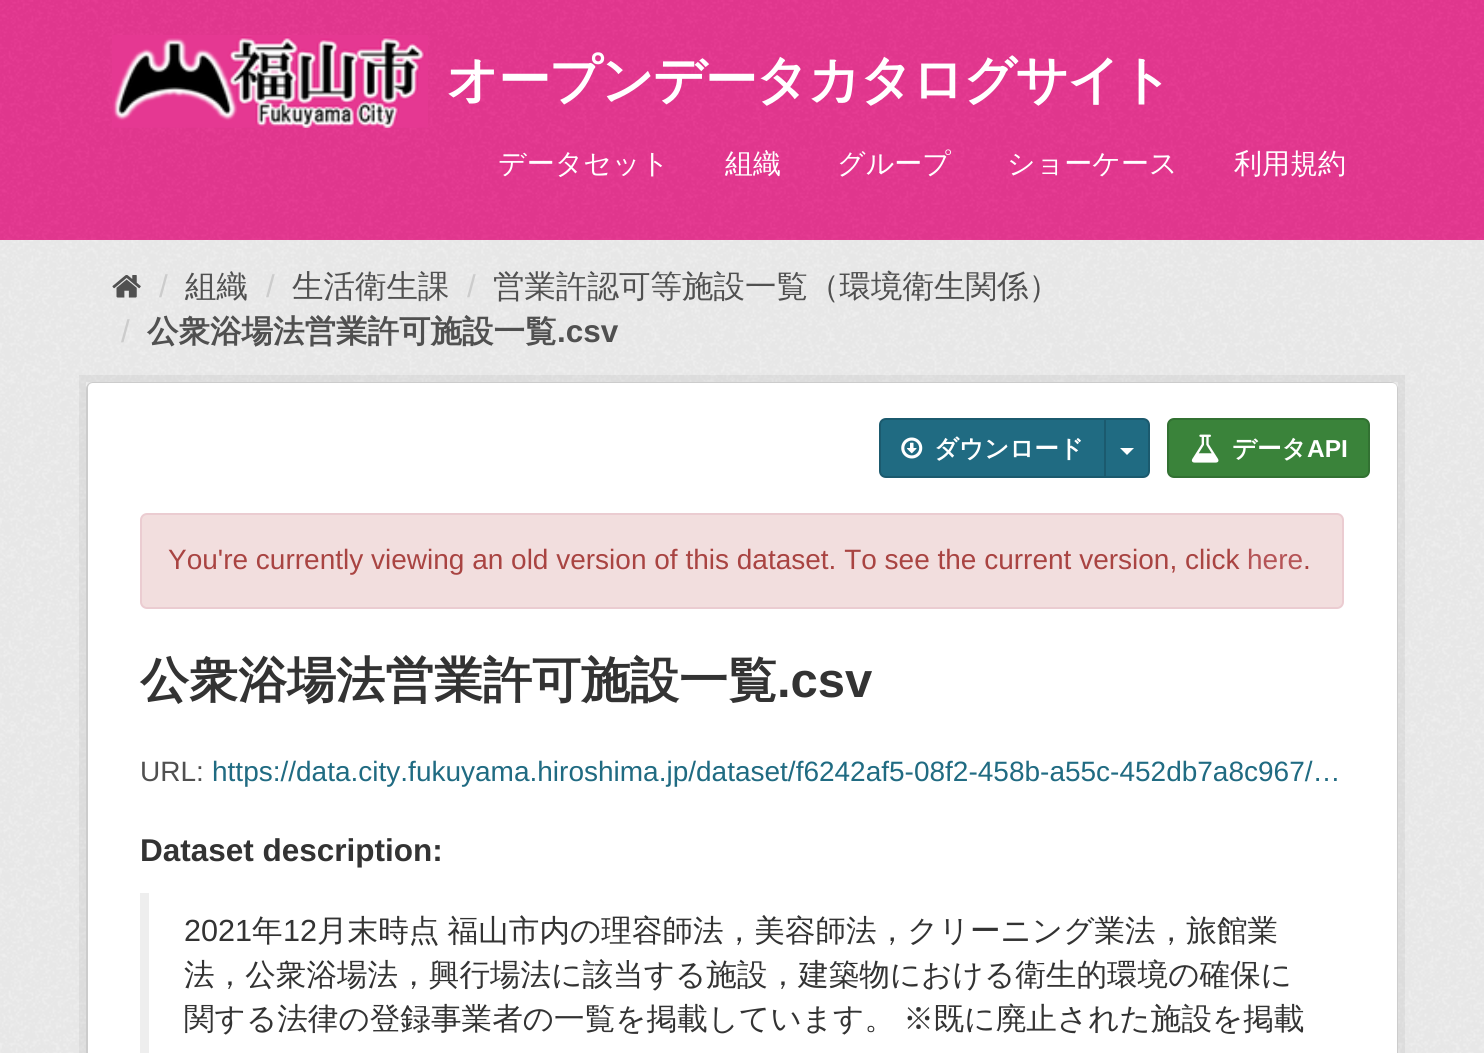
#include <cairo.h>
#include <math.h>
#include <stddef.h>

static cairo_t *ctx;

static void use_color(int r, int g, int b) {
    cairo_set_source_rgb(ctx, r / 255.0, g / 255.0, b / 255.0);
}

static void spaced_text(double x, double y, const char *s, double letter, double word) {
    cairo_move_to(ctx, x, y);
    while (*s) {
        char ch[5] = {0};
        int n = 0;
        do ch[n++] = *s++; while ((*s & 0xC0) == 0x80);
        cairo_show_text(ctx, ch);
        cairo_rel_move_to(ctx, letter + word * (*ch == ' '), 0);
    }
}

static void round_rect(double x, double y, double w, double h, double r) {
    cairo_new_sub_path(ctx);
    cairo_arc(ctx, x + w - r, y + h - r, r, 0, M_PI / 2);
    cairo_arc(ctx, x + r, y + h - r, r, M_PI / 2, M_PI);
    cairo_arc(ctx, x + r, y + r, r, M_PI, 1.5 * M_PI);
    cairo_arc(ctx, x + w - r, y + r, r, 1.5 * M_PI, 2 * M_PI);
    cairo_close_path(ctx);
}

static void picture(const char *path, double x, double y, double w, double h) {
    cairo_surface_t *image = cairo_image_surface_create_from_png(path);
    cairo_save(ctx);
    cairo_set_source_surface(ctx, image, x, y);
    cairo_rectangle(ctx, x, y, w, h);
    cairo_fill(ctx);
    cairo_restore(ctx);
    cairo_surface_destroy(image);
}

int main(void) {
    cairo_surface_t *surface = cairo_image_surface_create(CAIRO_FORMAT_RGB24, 1484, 1053);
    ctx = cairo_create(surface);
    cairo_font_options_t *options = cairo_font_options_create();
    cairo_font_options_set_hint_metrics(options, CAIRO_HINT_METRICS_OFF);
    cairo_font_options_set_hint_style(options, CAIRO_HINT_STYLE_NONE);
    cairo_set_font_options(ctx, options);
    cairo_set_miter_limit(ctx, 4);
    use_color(238, 238, 238);
    cairo_paint(ctx);
    use_color(231, 56, 146);
    cairo_rectangle(ctx, 0, 0, 1484, 240);
    cairo_fill(ctx);
    picture("img1.png", 0, 0, 1484, 240);
    picture("img2.png", 112, 35, 316, 93);
    cairo_select_font_face(ctx, "WenQuanYi Zen Hei", CAIRO_FONT_SLANT_NORMAL, CAIRO_FONT_WEIGHT_BOLD);
    cairo_set_font_size(ctx, 52.5);
    use_color(255, 255, 255);
    spaced_text(446, 98, "オープンデータカタログサイト", -1.75, 0);
    cairo_select_font_face(ctx, "WenQuanYi Zen Hei Medium", CAIRO_FONT_SLANT_NORMAL, CAIRO_FONT_WEIGHT_NORMAL);
    cairo_set_font_size(ctx, 28);
    cairo_move_to(ctx, 498, 173);
    cairo_show_text(ctx, "データセット");
    cairo_move_to(ctx, 725, 173);
    cairo_show_text(ctx, "組織");
    cairo_move_to(ctx, 837, 173);
    cairo_show_text(ctx, "グループ");
    cairo_move_to(ctx, 1007, 173);
    cairo_show_text(ctx, "ショーケース");
    cairo_move_to(ctx, 1234, 173);
    cairo_show_text(ctx, "利用規約");
    picture("img3.png", 0, 240, 1484, 813);
    picture("img4.png", 112, 275, 29, 23);
    cairo_select_font_face(ctx, "Liberation Sans", CAIRO_FONT_SLANT_NORMAL, CAIRO_FONT_WEIGHT_NORMAL);
    cairo_set_font_size(ctx, 31.5);
    use_color(204, 204, 204);
    cairo_move_to(ctx, 159, 297);
    cairo_show_text(ctx, "/");
    cairo_select_font_face(ctx, "WenQuanYi Zen Hei Medium", CAIRO_FONT_SLANT_NORMAL, CAIRO_FONT_WEIGHT_NORMAL);
    use_color(80, 80, 80);
    cairo_move_to(ctx, 185, 297);
    cairo_show_text(ctx, "組織");
    cairo_select_font_face(ctx, "Liberation Sans", CAIRO_FONT_SLANT_NORMAL, CAIRO_FONT_WEIGHT_NORMAL);
    use_color(204, 204, 204);
    cairo_move_to(ctx, 266, 297);
    cairo_show_text(ctx, "/");
    cairo_select_font_face(ctx, "WenQuanYi Zen Hei Medium", CAIRO_FONT_SLANT_NORMAL, CAIRO_FONT_WEIGHT_NORMAL);
    use_color(80, 80, 80);
    cairo_move_to(ctx, 292, 297);
    cairo_show_text(ctx, "生活衛生課");
    cairo_select_font_face(ctx, "Liberation Sans", CAIRO_FONT_SLANT_NORMAL, CAIRO_FONT_WEIGHT_NORMAL);
    use_color(204, 204, 204);
    cairo_move_to(ctx, 467, 297);
    cairo_show_text(ctx, "/");
    cairo_select_font_face(ctx, "WenQuanYi Zen Hei Medium", CAIRO_FONT_SLANT_NORMAL, CAIRO_FONT_WEIGHT_NORMAL);
    use_color(80, 80, 80);
    cairo_move_to(ctx, 493, 297);
    cairo_show_text(ctx, "営業許認可等施設一覧（環境衛生関係）");
    cairo_select_font_face(ctx, "Liberation Sans", CAIRO_FONT_SLANT_NORMAL, CAIRO_FONT_WEIGHT_NORMAL);
    use_color(204, 204, 204);
    cairo_move_to(ctx, 121, 342);
    cairo_show_text(ctx, "/");
    cairo_select_font_face(ctx, "WenQuanYi Zen Hei", CAIRO_FONT_SLANT_NORMAL, CAIRO_FONT_WEIGHT_BOLD);
    use_color(80, 80, 80);
    cairo_move_to(ctx, 147, 342);
    cairo_show_text(ctx, "公衆浴場法営業許可施設一覧");
    cairo_select_font_face(ctx, "Liberation Sans", CAIRO_FONT_SLANT_NORMAL, CAIRO_FONT_WEIGHT_BOLD);
    cairo_move_to(ctx, 557, 342);
    cairo_show_text(ctx, ".csv");
    cairo_rectangle(ctx, 82.5, 378.5, 1319, 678);
    cairo_set_source_rgba(ctx, 0, 0, 0, 0.05);
    cairo_set_line_width(ctx, 7);
    cairo_stroke(ctx);
    round_rect(87, 383, 1310, 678, 6);
    use_color(204, 204, 204);
    cairo_set_line_width(ctx, 2);
    cairo_stroke(ctx);
    use_color(255, 255, 255);
    cairo_new_path(ctx);
    cairo_move_to(ctx, 93, 383);
    cairo_line_to(ctx, 1392, 383);
    cairo_curve_to(ctx, 1395, 383, 1397, 385, 1397, 388);
    cairo_line_to(ctx, 1397, 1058);
    cairo_line_to(ctx, 88, 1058);
    cairo_line_to(ctx, 88, 388);
    cairo_curve_to(ctx, 88, 385, 90, 383, 93, 383);
    cairo_close_path(ctx);
    cairo_fill(ctx);
    use_color(32, 107, 130);
    cairo_new_path(ctx);
    cairo_move_to(ctx, 886, 419);
    cairo_line_to(ctx, 1105, 419);
    cairo_line_to(ctx, 1105, 477);
    cairo_line_to(ctx, 886, 477);
    cairo_curve_to(ctx, 882.5, 477, 880, 474.5, 880, 471);
    cairo_line_to(ctx, 880, 425);
    cairo_curve_to(ctx, 880, 421.5, 882.5, 419, 886, 419);
    cairo_close_path(ctx);
    cairo_fill_preserve(ctx);
    use_color(27, 90, 110);
    cairo_stroke(ctx);
    picture("img5.png", 901, 437, 22, 22);
    cairo_select_font_face(ctx, "WenQuanYi Zen Hei", CAIRO_FONT_SLANT_NORMAL, CAIRO_FONT_WEIGHT_BOLD);
    cairo_set_font_size(ctx, 24.5);
    use_color(255, 255, 255);
    cairo_move_to(ctx, 934, 457);
    cairo_show_text(ctx, "ダウンロード");
    use_color(32, 107, 130);
    cairo_new_path(ctx);
    cairo_move_to(ctx, 1105, 419);
    cairo_line_to(ctx, 1143, 419);
    cairo_curve_to(ctx, 1146.5, 419, 1149, 421.5, 1149, 425);
    cairo_line_to(ctx, 1149, 471);
    cairo_curve_to(ctx, 1149, 474.5, 1146.5, 477, 1143, 477);
    cairo_line_to(ctx, 1105, 477);
    cairo_close_path(ctx);
    cairo_fill_preserve(ctx);
    use_color(27, 90, 110);
    cairo_stroke(ctx);
    use_color(255, 255, 255);
    cairo_new_path(ctx);
    cairo_move_to(ctx, 1120, 448);
    cairo_line_to(ctx, 1134, 448);
    cairo_line_to(ctx, 1127, 455);
    cairo_close_path(ctx);
    cairo_fill(ctx);
    use_color(58, 131, 58);
    round_rect(1168, 419, 201, 58, 6);
    cairo_fill_preserve(ctx);
    use_color(50, 113, 50);
    cairo_stroke(ctx);
    picture("img6.png", 1191, 434, 28, 29);
    use_color(255, 255, 255);
    cairo_move_to(ctx, 1232, 457);
    cairo_show_text(ctx, "データ");
    cairo_select_font_face(ctx, "Liberation Sans", CAIRO_FONT_SLANT_NORMAL, CAIRO_FONT_WEIGHT_BOLD);
    cairo_move_to(ctx, 1307, 457);
    cairo_show_text(ctx, "API");
    use_color(242, 222, 222);
    round_rect(141, 514, 1202, 94, 6);
    cairo_fill_preserve(ctx);
    use_color(235, 204, 209);
    cairo_stroke(ctx);
    cairo_select_font_face(ctx, "Liberation Sans", CAIRO_FONT_SLANT_NORMAL, CAIRO_FONT_WEIGHT_NORMAL);
    cairo_set_font_size(ctx, 28);
    use_color(169, 68, 66);
    cairo_move_to(ctx, 168, 569);
    cairo_show_text(ctx, "You're currently viewing an old version of this dataset. To see the current version, click");
    use_color(181, 84, 87);
    cairo_move_to(ctx, 1247, 569);
    cairo_show_text(ctx, "here");
    use_color(169, 68, 66);
    cairo_move_to(ctx, 1303, 569);
    cairo_show_text(ctx, ".");
    cairo_select_font_face(ctx, "WenQuanYi Zen Hei", CAIRO_FONT_SLANT_NORMAL, CAIRO_FONT_WEIGHT_BOLD);
    cairo_set_font_size(ctx, 49);
    use_color(51, 51, 51);
    cairo_move_to(ctx, 140, 697);
    cairo_show_text(ctx, "公衆浴場法営業許可施設一覧");
    cairo_select_font_face(ctx, "Liberation Sans", CAIRO_FONT_SLANT_NORMAL, CAIRO_FONT_WEIGHT_BOLD);
    cairo_move_to(ctx, 777, 697);
    cairo_show_text(ctx, ".csv");
    cairo_select_font_face(ctx, "Liberation Sans", CAIRO_FONT_SLANT_NORMAL, CAIRO_FONT_WEIGHT_NORMAL);
    cairo_set_font_size(ctx, 28);
    use_color(80, 80, 80);
    cairo_move_to(ctx, 140, 781);
    cairo_show_text(ctx, "URL:");
    use_color(32, 107, 130);
    cairo_move_to(ctx, 212, 781);
    cairo_show_text(ctx, "https://data.city.fukuyama.hiroshima.jp/dataset/f6242af5-08f2-458b-a55c-452db7a8c967/…");
    cairo_select_font_face(ctx, "Liberation Sans", CAIRO_FONT_SLANT_NORMAL, CAIRO_FONT_WEIGHT_BOLD);
    cairo_set_font_size(ctx, 31.5);
    use_color(51, 51, 51);
    cairo_move_to(ctx, 140, 861);
    cairo_show_text(ctx, "Dataset description:");
    use_color(238, 238, 238);
    cairo_rectangle(ctx, 140, 893, 9, 160);
    cairo_fill(ctx);
    cairo_select_font_face(ctx, "Liberation Sans", CAIRO_FONT_SLANT_NORMAL, CAIRO_FONT_WEIGHT_NORMAL);
    cairo_set_font_size(ctx, 30.6);
    use_color(51, 51, 51);
    cairo_move_to(ctx, 184, 941);
    cairo_show_text(ctx, "2021");
    cairo_select_font_face(ctx, "WenQuanYi Zen Hei Medium", CAIRO_FONT_SLANT_NORMAL, CAIRO_FONT_WEIGHT_NORMAL);
    cairo_move_to(ctx, 252, 941);
    cairo_show_text(ctx, "年");
    cairo_select_font_face(ctx, "Liberation Sans", CAIRO_FONT_SLANT_NORMAL, CAIRO_FONT_WEIGHT_NORMAL);
    cairo_move_to(ctx, 283, 941);
    cairo_show_text(ctx, "12");
    cairo_select_font_face(ctx, "WenQuanYi Zen Hei Medium", CAIRO_FONT_SLANT_NORMAL, CAIRO_FONT_WEIGHT_NORMAL);
    spaced_text(317, 941, "月末時点 福山市内の理容師法，美容師法，クリーニング業法，旅館業", 0, -1);
    cairo_move_to(ctx, 184, 985);
    cairo_show_text(ctx, "法，公衆浴場法，興行場法に該当する施設，建築物における衛生的環境の確保に");
    spaced_text(184, 1029, "関する法律の登録事業者の一覧を掲載しています。 ※既に廃止された施設を掲載", 0, -1);
    cairo_surface_write_to_png(surface, "result.png");
    cairo_font_options_destroy(options);
    cairo_destroy(ctx);
    cairo_surface_destroy(surface);
    return 0;
}
